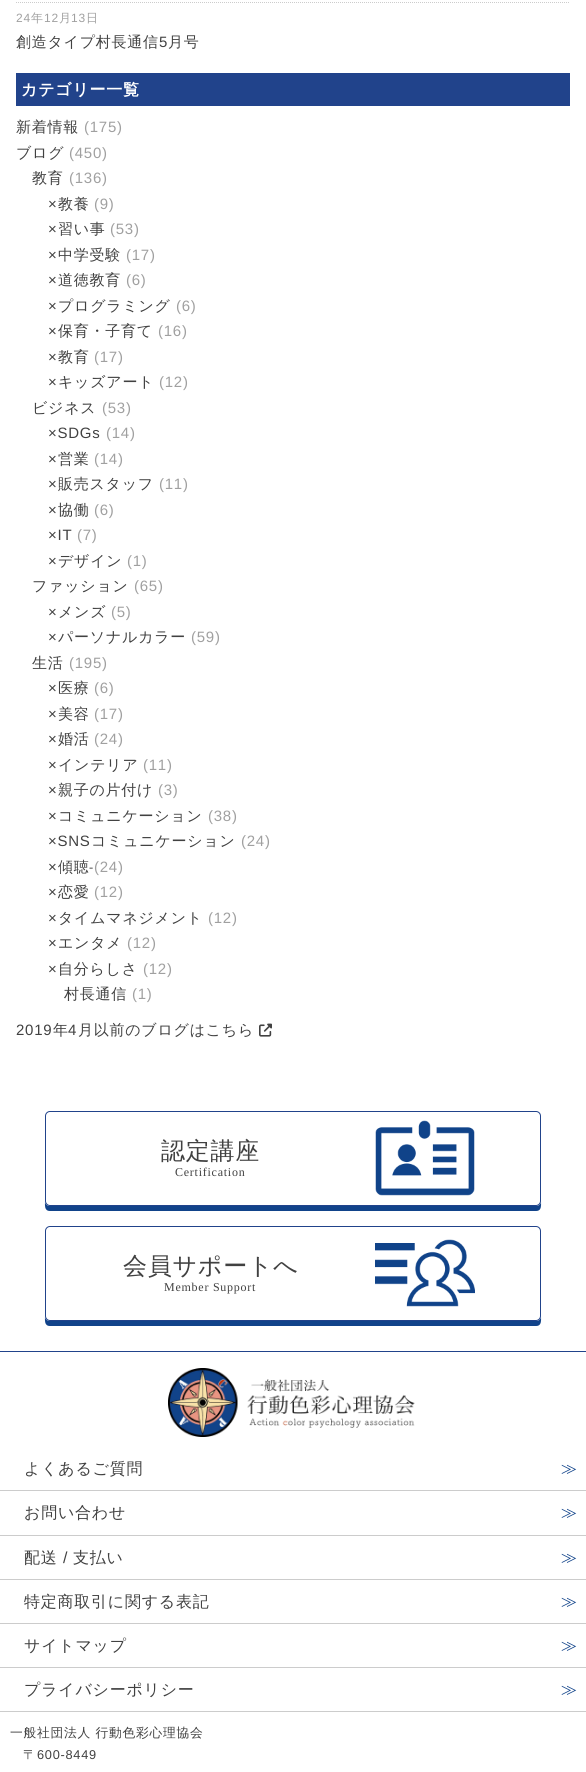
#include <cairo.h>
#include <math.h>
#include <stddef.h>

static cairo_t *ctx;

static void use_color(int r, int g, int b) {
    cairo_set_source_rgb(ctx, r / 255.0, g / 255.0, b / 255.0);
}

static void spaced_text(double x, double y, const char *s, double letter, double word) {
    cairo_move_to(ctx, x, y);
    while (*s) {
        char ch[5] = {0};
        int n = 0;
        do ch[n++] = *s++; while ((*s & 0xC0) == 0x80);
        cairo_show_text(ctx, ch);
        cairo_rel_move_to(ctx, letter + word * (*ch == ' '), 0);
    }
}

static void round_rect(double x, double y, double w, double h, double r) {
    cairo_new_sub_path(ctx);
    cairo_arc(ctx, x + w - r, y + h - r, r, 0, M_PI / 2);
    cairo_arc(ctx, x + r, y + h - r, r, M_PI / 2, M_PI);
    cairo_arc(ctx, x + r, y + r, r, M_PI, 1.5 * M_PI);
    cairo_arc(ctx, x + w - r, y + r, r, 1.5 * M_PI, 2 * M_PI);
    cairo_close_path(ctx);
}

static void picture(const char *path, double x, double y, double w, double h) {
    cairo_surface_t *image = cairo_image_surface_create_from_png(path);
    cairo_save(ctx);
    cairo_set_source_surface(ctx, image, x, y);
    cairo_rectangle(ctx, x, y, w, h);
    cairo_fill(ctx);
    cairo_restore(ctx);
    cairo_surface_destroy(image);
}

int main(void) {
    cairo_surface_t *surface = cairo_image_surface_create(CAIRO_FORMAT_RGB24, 586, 1772);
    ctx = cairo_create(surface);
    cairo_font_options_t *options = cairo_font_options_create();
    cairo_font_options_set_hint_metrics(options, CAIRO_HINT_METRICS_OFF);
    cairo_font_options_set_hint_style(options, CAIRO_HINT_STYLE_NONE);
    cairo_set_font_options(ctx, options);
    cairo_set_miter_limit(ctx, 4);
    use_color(255, 255, 255);
    cairo_paint(ctx);
    cairo_new_path(ctx);
    cairo_move_to(ctx, 16, 2.5);
    cairo_line_to(ctx, 570, 2.5);
    use_color(204, 204, 204);
    cairo_set_line_width(ctx, 1);
    cairo_set_dash(ctx, (double[]){1, 1}, 2, 0);
    cairo_stroke(ctx);
    cairo_select_font_face(ctx, "Liberation Sans", CAIRO_FONT_SLANT_NORMAL, CAIRO_FONT_WEIGHT_NORMAL);
    cairo_set_font_size(ctx, 12);
    use_color(160, 160, 160);
    spaced_text(16, 22, "24", 0.75, 0);
    cairo_select_font_face(ctx, "WenQuanYi Zen Hei Medium", CAIRO_FONT_SLANT_NORMAL, CAIRO_FONT_WEIGHT_NORMAL);
    spaced_text(31, 22, "年", 0.75, 0);
    cairo_select_font_face(ctx, "Liberation Sans", CAIRO_FONT_SLANT_NORMAL, CAIRO_FONT_WEIGHT_NORMAL);
    spaced_text(44, 22, "12", 0.75, 0);
    cairo_select_font_face(ctx, "WenQuanYi Zen Hei Medium", CAIRO_FONT_SLANT_NORMAL, CAIRO_FONT_WEIGHT_NORMAL);
    spaced_text(59, 22, "月", 0.75, 0);
    cairo_select_font_face(ctx, "Liberation Sans", CAIRO_FONT_SLANT_NORMAL, CAIRO_FONT_WEIGHT_NORMAL);
    spaced_text(71, 22, "13", 0.75, 0);
    cairo_select_font_face(ctx, "WenQuanYi Zen Hei Medium", CAIRO_FONT_SLANT_NORMAL, CAIRO_FONT_WEIGHT_NORMAL);
    spaced_text(86, 22, "日", 0.75, 0);
    cairo_set_font_size(ctx, 15);
    use_color(65, 65, 65);
    spaced_text(16, 47, "創造タイプ村長通信", 0.75, 0);
    cairo_select_font_face(ctx, "Liberation Sans", CAIRO_FONT_SLANT_NORMAL, CAIRO_FONT_WEIGHT_NORMAL);
    spaced_text(159, 47, "5", 0.75, 0);
    cairo_select_font_face(ctx, "WenQuanYi Zen Hei Medium", CAIRO_FONT_SLANT_NORMAL, CAIRO_FONT_WEIGHT_NORMAL);
    spaced_text(168, 47, "月号", 0.75, 0);
    use_color(33, 67, 139);
    cairo_rectangle(ctx, 16, 73, 554, 33);
    cairo_fill(ctx);
    cairo_select_font_face(ctx, "WenQuanYi Zen Hei", CAIRO_FONT_SLANT_NORMAL, CAIRO_FONT_WEIGHT_BOLD);
    cairo_set_font_size(ctx, 16);
    use_color(255, 255, 255);
    spaced_text(21, 95, "カテゴリー一覧", 0.75, 0);
    cairo_select_font_face(ctx, "WenQuanYi Zen Hei Medium", CAIRO_FONT_SLANT_NORMAL, CAIRO_FONT_WEIGHT_NORMAL);
    cairo_set_font_size(ctx, 15);
    use_color(65, 65, 65);
    spaced_text(16, 132, "新着情報", 0.75, 0);
    cairo_select_font_face(ctx, "Liberation Sans", CAIRO_FONT_SLANT_NORMAL, CAIRO_FONT_WEIGHT_NORMAL);
    use_color(160, 160, 160);
    spaced_text(84, 132, "(175)", 0.75, 0);
    cairo_select_font_face(ctx, "WenQuanYi Zen Hei Medium", CAIRO_FONT_SLANT_NORMAL, CAIRO_FONT_WEIGHT_NORMAL);
    use_color(65, 65, 65);
    spaced_text(16, 158, "ブログ", 0.75, 0);
    cairo_select_font_face(ctx, "Liberation Sans", CAIRO_FONT_SLANT_NORMAL, CAIRO_FONT_WEIGHT_NORMAL);
    use_color(160, 160, 160);
    spaced_text(69, 158, "(450)", 0.75, 0);
    cairo_select_font_face(ctx, "WenQuanYi Zen Hei Medium", CAIRO_FONT_SLANT_NORMAL, CAIRO_FONT_WEIGHT_NORMAL);
    use_color(65, 65, 65);
    spaced_text(32, 183, "教育", 0.75, 0);
    cairo_select_font_face(ctx, "Liberation Sans", CAIRO_FONT_SLANT_NORMAL, CAIRO_FONT_WEIGHT_NORMAL);
    use_color(160, 160, 160);
    spaced_text(69, 183, "(136)", 0.75, 0);
    use_color(65, 65, 65);
    spaced_text(48, 209, "×", 0.75, 0);
    cairo_select_font_face(ctx, "WenQuanYi Zen Hei Medium", CAIRO_FONT_SLANT_NORMAL, CAIRO_FONT_WEIGHT_NORMAL);
    spaced_text(58, 209, "教養", 0.75, 0);
    cairo_select_font_face(ctx, "Liberation Sans", CAIRO_FONT_SLANT_NORMAL, CAIRO_FONT_WEIGHT_NORMAL);
    use_color(160, 160, 160);
    spaced_text(94, 209, "(9)", 0.75, 0);
    use_color(65, 65, 65);
    spaced_text(48, 234, "×", 0.75, 0);
    cairo_select_font_face(ctx, "WenQuanYi Zen Hei Medium", CAIRO_FONT_SLANT_NORMAL, CAIRO_FONT_WEIGHT_NORMAL);
    spaced_text(58, 234, "習い事", 0.75, 0);
    cairo_select_font_face(ctx, "Liberation Sans", CAIRO_FONT_SLANT_NORMAL, CAIRO_FONT_WEIGHT_NORMAL);
    use_color(160, 160, 160);
    spaced_text(110, 234, "(53)", 0.75, 0);
    use_color(65, 65, 65);
    spaced_text(48, 260, "×", 0.75, 0);
    cairo_select_font_face(ctx, "WenQuanYi Zen Hei Medium", CAIRO_FONT_SLANT_NORMAL, CAIRO_FONT_WEIGHT_NORMAL);
    spaced_text(58, 260, "中学受験", 0.75, 0);
    cairo_select_font_face(ctx, "Liberation Sans", CAIRO_FONT_SLANT_NORMAL, CAIRO_FONT_WEIGHT_NORMAL);
    use_color(160, 160, 160);
    spaced_text(126, 260, "(17)", 0.75, 0);
    use_color(65, 65, 65);
    spaced_text(48, 285, "×", 0.75, 0);
    cairo_select_font_face(ctx, "WenQuanYi Zen Hei Medium", CAIRO_FONT_SLANT_NORMAL, CAIRO_FONT_WEIGHT_NORMAL);
    spaced_text(58, 285, "道徳教育", 0.75, 0);
    cairo_select_font_face(ctx, "Liberation Sans", CAIRO_FONT_SLANT_NORMAL, CAIRO_FONT_WEIGHT_NORMAL);
    use_color(160, 160, 160);
    spaced_text(126, 285, "(6)", 0.75, 0);
    use_color(65, 65, 65);
    spaced_text(48, 311, "×", 0.75, 0);
    cairo_select_font_face(ctx, "WenQuanYi Zen Hei Medium", CAIRO_FONT_SLANT_NORMAL, CAIRO_FONT_WEIGHT_NORMAL);
    spaced_text(58, 311, "プログラミング", 0.75, 0);
    cairo_select_font_face(ctx, "Liberation Sans", CAIRO_FONT_SLANT_NORMAL, CAIRO_FONT_WEIGHT_NORMAL);
    use_color(160, 160, 160);
    spaced_text(176, 311, "(6)", 0.75, 0);
    use_color(65, 65, 65);
    spaced_text(48, 336, "×", 0.75, 0);
    cairo_select_font_face(ctx, "WenQuanYi Zen Hei Medium", CAIRO_FONT_SLANT_NORMAL, CAIRO_FONT_WEIGHT_NORMAL);
    spaced_text(58, 336, "保育・子育て", 0.75, 0);
    cairo_select_font_face(ctx, "Liberation Sans", CAIRO_FONT_SLANT_NORMAL, CAIRO_FONT_WEIGHT_NORMAL);
    use_color(160, 160, 160);
    spaced_text(158, 336, "(16)", 0.75, 0);
    use_color(65, 65, 65);
    spaced_text(48, 362, "×", 0.75, 0);
    cairo_select_font_face(ctx, "WenQuanYi Zen Hei Medium", CAIRO_FONT_SLANT_NORMAL, CAIRO_FONT_WEIGHT_NORMAL);
    spaced_text(58, 362, "教育", 0.75, 0);
    cairo_select_font_face(ctx, "Liberation Sans", CAIRO_FONT_SLANT_NORMAL, CAIRO_FONT_WEIGHT_NORMAL);
    use_color(160, 160, 160);
    spaced_text(94, 362, "(17)", 0.75, 0);
    use_color(65, 65, 65);
    spaced_text(48, 387, "×", 0.75, 0);
    cairo_select_font_face(ctx, "WenQuanYi Zen Hei Medium", CAIRO_FONT_SLANT_NORMAL, CAIRO_FONT_WEIGHT_NORMAL);
    spaced_text(58, 387, "キッズアート", 0.75, 0);
    cairo_select_font_face(ctx, "Liberation Sans", CAIRO_FONT_SLANT_NORMAL, CAIRO_FONT_WEIGHT_NORMAL);
    use_color(160, 160, 160);
    spaced_text(159, 387, "(12)", 0.75, 0);
    cairo_select_font_face(ctx, "WenQuanYi Zen Hei Medium", CAIRO_FONT_SLANT_NORMAL, CAIRO_FONT_WEIGHT_NORMAL);
    use_color(65, 65, 65);
    spaced_text(32, 413, "ビジネス", 0.75, 0);
    cairo_select_font_face(ctx, "Liberation Sans", CAIRO_FONT_SLANT_NORMAL, CAIRO_FONT_WEIGHT_NORMAL);
    use_color(160, 160, 160);
    spaced_text(102, 413, "(53)", 0.75, 0);
    use_color(65, 65, 65);
    spaced_text(48, 438, "×SDGs", 0.75, 0);
    use_color(160, 160, 160);
    spaced_text(106, 438, "(14)", 0.75, 0);
    use_color(65, 65, 65);
    spaced_text(48, 464, "×", 0.75, 0);
    cairo_select_font_face(ctx, "WenQuanYi Zen Hei Medium", CAIRO_FONT_SLANT_NORMAL, CAIRO_FONT_WEIGHT_NORMAL);
    spaced_text(58, 464, "営業", 0.75, 0);
    cairo_select_font_face(ctx, "Liberation Sans", CAIRO_FONT_SLANT_NORMAL, CAIRO_FONT_WEIGHT_NORMAL);
    use_color(160, 160, 160);
    spaced_text(94, 464, "(14)", 0.75, 0);
    use_color(65, 65, 65);
    spaced_text(48, 489, "×", 0.75, 0);
    cairo_select_font_face(ctx, "WenQuanYi Zen Hei Medium", CAIRO_FONT_SLANT_NORMAL, CAIRO_FONT_WEIGHT_NORMAL);
    spaced_text(58, 489, "販売スタッフ", 0.75, 0);
    cairo_select_font_face(ctx, "Liberation Sans", CAIRO_FONT_SLANT_NORMAL, CAIRO_FONT_WEIGHT_NORMAL);
    use_color(160, 160, 160);
    spaced_text(159, 489, "(11)", 0.75, 0);
    use_color(65, 65, 65);
    spaced_text(48, 515, "×", 0.75, 0);
    cairo_select_font_face(ctx, "WenQuanYi Zen Hei Medium", CAIRO_FONT_SLANT_NORMAL, CAIRO_FONT_WEIGHT_NORMAL);
    spaced_text(58, 515, "協働", 0.75, 0);
    cairo_select_font_face(ctx, "Liberation Sans", CAIRO_FONT_SLANT_NORMAL, CAIRO_FONT_WEIGHT_NORMAL);
    use_color(160, 160, 160);
    spaced_text(94, 515, "(6)", 0.75, 0);
    use_color(65, 65, 65);
    spaced_text(48, 540, "×IT", 0.75, 0);
    use_color(160, 160, 160);
    spaced_text(77, 540, "(7)", 0.75, 0);
    use_color(65, 65, 65);
    spaced_text(48, 566, "×", 0.75, 0);
    cairo_select_font_face(ctx, "WenQuanYi Zen Hei Medium", CAIRO_FONT_SLANT_NORMAL, CAIRO_FONT_WEIGHT_NORMAL);
    spaced_text(58, 566, "デザイン", 0.75, 0);
    cairo_select_font_face(ctx, "Liberation Sans", CAIRO_FONT_SLANT_NORMAL, CAIRO_FONT_WEIGHT_NORMAL);
    use_color(160, 160, 160);
    spaced_text(127, 566, "(1)", 0.75, 0);
    cairo_select_font_face(ctx, "WenQuanYi Zen Hei Medium", CAIRO_FONT_SLANT_NORMAL, CAIRO_FONT_WEIGHT_NORMAL);
    use_color(65, 65, 65);
    spaced_text(32, 591, "ファッション", 0.75, 0);
    cairo_select_font_face(ctx, "Liberation Sans", CAIRO_FONT_SLANT_NORMAL, CAIRO_FONT_WEIGHT_NORMAL);
    use_color(160, 160, 160);
    spaced_text(134, 591, "(65)", 0.75, 0);
    use_color(65, 65, 65);
    spaced_text(48, 617, "×", 0.75, 0);
    cairo_select_font_face(ctx, "WenQuanYi Zen Hei Medium", CAIRO_FONT_SLANT_NORMAL, CAIRO_FONT_WEIGHT_NORMAL);
    spaced_text(58, 617, "メンズ", 0.75, 0);
    cairo_select_font_face(ctx, "Liberation Sans", CAIRO_FONT_SLANT_NORMAL, CAIRO_FONT_WEIGHT_NORMAL);
    use_color(160, 160, 160);
    spaced_text(111, 617, "(5)", 0.75, 0);
    use_color(65, 65, 65);
    spaced_text(48, 642, "×", 0.75, 0);
    cairo_select_font_face(ctx, "WenQuanYi Zen Hei Medium", CAIRO_FONT_SLANT_NORMAL, CAIRO_FONT_WEIGHT_NORMAL);
    spaced_text(58, 642, "パーソナルカラー", 0.75, 0);
    cairo_select_font_face(ctx, "Liberation Sans", CAIRO_FONT_SLANT_NORMAL, CAIRO_FONT_WEIGHT_NORMAL);
    use_color(160, 160, 160);
    spaced_text(191, 642, "(59)", 0.75, 0);
    cairo_select_font_face(ctx, "WenQuanYi Zen Hei Medium", CAIRO_FONT_SLANT_NORMAL, CAIRO_FONT_WEIGHT_NORMAL);
    use_color(65, 65, 65);
    spaced_text(32, 668, "生活", 0.75, 0);
    cairo_select_font_face(ctx, "Liberation Sans", CAIRO_FONT_SLANT_NORMAL, CAIRO_FONT_WEIGHT_NORMAL);
    use_color(160, 160, 160);
    spaced_text(69, 668, "(195)", 0.75, 0);
    use_color(65, 65, 65);
    spaced_text(48, 693, "×", 0.75, 0);
    cairo_select_font_face(ctx, "WenQuanYi Zen Hei Medium", CAIRO_FONT_SLANT_NORMAL, CAIRO_FONT_WEIGHT_NORMAL);
    spaced_text(58, 693, "医療", 0.75, 0);
    cairo_select_font_face(ctx, "Liberation Sans", CAIRO_FONT_SLANT_NORMAL, CAIRO_FONT_WEIGHT_NORMAL);
    use_color(160, 160, 160);
    spaced_text(94, 693, "(6)", 0.75, 0);
    use_color(65, 65, 65);
    spaced_text(48, 719, "×", 0.75, 0);
    cairo_select_font_face(ctx, "WenQuanYi Zen Hei Medium", CAIRO_FONT_SLANT_NORMAL, CAIRO_FONT_WEIGHT_NORMAL);
    spaced_text(58, 719, "美容", 0.75, 0);
    cairo_select_font_face(ctx, "Liberation Sans", CAIRO_FONT_SLANT_NORMAL, CAIRO_FONT_WEIGHT_NORMAL);
    use_color(160, 160, 160);
    spaced_text(94, 719, "(17)", 0.75, 0);
    use_color(65, 65, 65);
    spaced_text(48, 744, "×", 0.75, 0);
    cairo_select_font_face(ctx, "WenQuanYi Zen Hei Medium", CAIRO_FONT_SLANT_NORMAL, CAIRO_FONT_WEIGHT_NORMAL);
    spaced_text(58, 744, "婚活", 0.75, 0);
    cairo_select_font_face(ctx, "Liberation Sans", CAIRO_FONT_SLANT_NORMAL, CAIRO_FONT_WEIGHT_NORMAL);
    use_color(160, 160, 160);
    spaced_text(94, 744, "(24)", 0.75, 0);
    use_color(65, 65, 65);
    spaced_text(48, 770, "×", 0.75, 0);
    cairo_select_font_face(ctx, "WenQuanYi Zen Hei Medium", CAIRO_FONT_SLANT_NORMAL, CAIRO_FONT_WEIGHT_NORMAL);
    spaced_text(58, 770, "インテリア", 0.75, 0);
    cairo_select_font_face(ctx, "Liberation Sans", CAIRO_FONT_SLANT_NORMAL, CAIRO_FONT_WEIGHT_NORMAL);
    use_color(160, 160, 160);
    spaced_text(143, 770, "(11)", 0.75, 0);
    use_color(65, 65, 65);
    spaced_text(48, 795, "×", 0.75, 0);
    cairo_select_font_face(ctx, "WenQuanYi Zen Hei Medium", CAIRO_FONT_SLANT_NORMAL, CAIRO_FONT_WEIGHT_NORMAL);
    spaced_text(58, 795, "親子の片付け", 0.75, 0);
    cairo_select_font_face(ctx, "Liberation Sans", CAIRO_FONT_SLANT_NORMAL, CAIRO_FONT_WEIGHT_NORMAL);
    use_color(160, 160, 160);
    spaced_text(158, 795, "(3)", 0.75, 0);
    use_color(65, 65, 65);
    spaced_text(48, 821, "×", 0.75, 0);
    cairo_select_font_face(ctx, "WenQuanYi Zen Hei Medium", CAIRO_FONT_SLANT_NORMAL, CAIRO_FONT_WEIGHT_NORMAL);
    spaced_text(58, 821, "コミュニケーション", 0.75, 0);
    cairo_select_font_face(ctx, "Liberation Sans", CAIRO_FONT_SLANT_NORMAL, CAIRO_FONT_WEIGHT_NORMAL);
    use_color(160, 160, 160);
    spaced_text(208, 821, "(38)", 0.75, 0);
    use_color(65, 65, 65);
    spaced_text(48, 846, "×SNS", 0.75, 0);
    cairo_select_font_face(ctx, "WenQuanYi Zen Hei Medium", CAIRO_FONT_SLANT_NORMAL, CAIRO_FONT_WEIGHT_NORMAL);
    spaced_text(91, 846, "コミュニケーション", 0.75, 0);
    cairo_select_font_face(ctx, "Liberation Sans", CAIRO_FONT_SLANT_NORMAL, CAIRO_FONT_WEIGHT_NORMAL);
    use_color(160, 160, 160);
    spaced_text(241, 846, "(24)", 0.75, 0);
    use_color(65, 65, 65);
    spaced_text(48, 872, "×", 0.75, 0);
    cairo_select_font_face(ctx, "WenQuanYi Zen Hei Medium", CAIRO_FONT_SLANT_NORMAL, CAIRO_FONT_WEIGHT_NORMAL);
    spaced_text(58, 872, "傾聴-", 0.75, 0);
    cairo_select_font_face(ctx, "Liberation Sans", CAIRO_FONT_SLANT_NORMAL, CAIRO_FONT_WEIGHT_NORMAL);
    use_color(160, 160, 160);
    spaced_text(94, 872, "(24)", 0.75, 0);
    use_color(65, 65, 65);
    spaced_text(48, 897, "×", 0.75, 0);
    cairo_select_font_face(ctx, "WenQuanYi Zen Hei Medium", CAIRO_FONT_SLANT_NORMAL, CAIRO_FONT_WEIGHT_NORMAL);
    spaced_text(58, 897, "恋愛", 0.75, 0);
    cairo_select_font_face(ctx, "Liberation Sans", CAIRO_FONT_SLANT_NORMAL, CAIRO_FONT_WEIGHT_NORMAL);
    use_color(160, 160, 160);
    spaced_text(94, 897, "(12)", 0.75, 0);
    use_color(65, 65, 65);
    spaced_text(48, 923, "×", 0.75, 0);
    cairo_select_font_face(ctx, "WenQuanYi Zen Hei Medium", CAIRO_FONT_SLANT_NORMAL, CAIRO_FONT_WEIGHT_NORMAL);
    spaced_text(58, 923, "タイムマネジメント", 0.75, 0);
    cairo_select_font_face(ctx, "Liberation Sans", CAIRO_FONT_SLANT_NORMAL, CAIRO_FONT_WEIGHT_NORMAL);
    use_color(160, 160, 160);
    spaced_text(208, 923, "(12)", 0.75, 0);
    use_color(65, 65, 65);
    spaced_text(48, 948, "×", 0.75, 0);
    cairo_select_font_face(ctx, "WenQuanYi Zen Hei Medium", CAIRO_FONT_SLANT_NORMAL, CAIRO_FONT_WEIGHT_NORMAL);
    spaced_text(58, 948, "エンタメ", 0.75, 0);
    cairo_select_font_face(ctx, "Liberation Sans", CAIRO_FONT_SLANT_NORMAL, CAIRO_FONT_WEIGHT_NORMAL);
    use_color(160, 160, 160);
    spaced_text(127, 948, "(12)", 0.75, 0);
    use_color(65, 65, 65);
    spaced_text(48, 974, "×", 0.75, 0);
    cairo_select_font_face(ctx, "WenQuanYi Zen Hei Medium", CAIRO_FONT_SLANT_NORMAL, CAIRO_FONT_WEIGHT_NORMAL);
    spaced_text(58, 974, "自分らしさ", 0.75, 0);
    cairo_select_font_face(ctx, "Liberation Sans", CAIRO_FONT_SLANT_NORMAL, CAIRO_FONT_WEIGHT_NORMAL);
    use_color(160, 160, 160);
    spaced_text(143, 974, "(12)", 0.75, 0);
    cairo_select_font_face(ctx, "WenQuanYi Zen Hei Medium", CAIRO_FONT_SLANT_NORMAL, CAIRO_FONT_WEIGHT_NORMAL);
    use_color(65, 65, 65);
    spaced_text(64, 999, "村長通信", 0.75, 0);
    cairo_select_font_face(ctx, "Liberation Sans", CAIRO_FONT_SLANT_NORMAL, CAIRO_FONT_WEIGHT_NORMAL);
    use_color(160, 160, 160);
    spaced_text(132, 999, "(1)", 0.75, 0);
    use_color(65, 65, 65);
    spaced_text(16, 1035, "2019", 0.75, 0);
    cairo_select_font_face(ctx, "WenQuanYi Zen Hei Medium", CAIRO_FONT_SLANT_NORMAL, CAIRO_FONT_WEIGHT_NORMAL);
    spaced_text(53, 1035, "年", 0.75, 0);
    cairo_select_font_face(ctx, "Liberation Sans", CAIRO_FONT_SLANT_NORMAL, CAIRO_FONT_WEIGHT_NORMAL);
    spaced_text(68, 1035, "4", 0.75, 0);
    cairo_select_font_face(ctx, "WenQuanYi Zen Hei Medium", CAIRO_FONT_SLANT_NORMAL, CAIRO_FONT_WEIGHT_NORMAL);
    spaced_text(78, 1035, "月以前のブログはこちら", 0.75, 0);
    picture("img1.png", 259, 1023, 13, 14);
    use_color(17, 67, 138);
    cairo_new_path(ctx);
    cairo_move_to(ctx, 45, 1201);
    cairo_curve_to(ctx, 45, 1205, 44, 1211, 50, 1211);
    cairo_line_to(ctx, 536, 1211);
    cairo_curve_to(ctx, 542, 1211, 541, 1205, 541, 1201);
    cairo_curve_to(ctx, 541, 1204, 539, 1206, 536, 1206);
    cairo_line_to(ctx, 50, 1206);
    cairo_curve_to(ctx, 47, 1206, 45, 1204, 45, 1201);
    cairo_close_path(ctx);
    cairo_fill(ctx);
    round_rect(45.5, 1111.5, 495, 94, 4.5);
    use_color(33, 67, 139);
    cairo_set_dash(ctx, NULL, 0, 0);
    cairo_stroke(ctx);
    cairo_set_font_size(ctx, 24);
    use_color(65, 65, 65);
    spaced_text(161, 1159, "認定講座", 0.75, 0);
    cairo_select_font_face(ctx, "Liberation Serif", CAIRO_FONT_SLANT_NORMAL, CAIRO_FONT_WEIGHT_NORMAL);
    cairo_set_font_size(ctx, 12);
    spaced_text(175, 1176, "Certification", 0.75, 0);
    picture("img2.png", 375, 1120, 100, 76);
    use_color(17, 67, 138);
    cairo_new_path(ctx);
    cairo_move_to(ctx, 45, 1316);
    cairo_curve_to(ctx, 45, 1320, 44, 1326, 50, 1326);
    cairo_line_to(ctx, 536, 1326);
    cairo_curve_to(ctx, 542, 1326, 541, 1320, 541, 1316);
    cairo_curve_to(ctx, 541, 1319, 539, 1321, 536, 1321);
    cairo_line_to(ctx, 50, 1321);
    cairo_curve_to(ctx, 47, 1321, 45, 1319, 45, 1316);
    cairo_close_path(ctx);
    cairo_fill(ctx);
    round_rect(45.5, 1226.5, 495, 94, 4.5);
    use_color(33, 67, 139);
    cairo_stroke(ctx);
    cairo_select_font_face(ctx, "WenQuanYi Zen Hei Medium", CAIRO_FONT_SLANT_NORMAL, CAIRO_FONT_WEIGHT_NORMAL);
    cairo_set_font_size(ctx, 24);
    use_color(65, 65, 65);
    spaced_text(123, 1274, "会員サポートへ", 0.75, 0);
    cairo_select_font_face(ctx, "Liberation Serif", CAIRO_FONT_SLANT_NORMAL, CAIRO_FONT_WEIGHT_NORMAL);
    cairo_set_font_size(ctx, 12);
    spaced_text(164, 1291, "Member Support", 0.75, 0);
    picture("img3.png", 375, 1239, 100, 68);
    use_color(33, 67, 139);
    cairo_rectangle(ctx, 0, 1351, 586, 1);
    cairo_fill(ctx);
    picture("img4.png", 168, 1368, 247, 69);
    use_color(204, 204, 204);
    cairo_rectangle(ctx, 0, 1490, 586, 1);
    cairo_fill(ctx);
    cairo_select_font_face(ctx, "WenQuanYi Zen Hei Medium", CAIRO_FONT_SLANT_NORMAL, CAIRO_FONT_WEIGHT_NORMAL);
    cairo_set_font_size(ctx, 16);
    use_color(65, 65, 65);
    spaced_text(24, 1474, "よくあるご質問", 0.75, 0);
    use_color(17, 67, 138);
    spaced_text(561, 1474, "≫", 0.75, 0);
    use_color(204, 204, 204);
    cairo_rectangle(ctx, 0, 1535, 586, 1);
    cairo_fill(ctx);
    use_color(65, 65, 65);
    spaced_text(24, 1518, "お問い合わせ", 0.75, 0);
    use_color(17, 67, 138);
    spaced_text(561, 1518, "≫", 0.75, 0);
    use_color(204, 204, 204);
    cairo_rectangle(ctx, 0, 1579, 586, 1);
    cairo_fill(ctx);
    use_color(65, 65, 65);
    spaced_text(24, 1563, "配送", 0.75, 0);
    cairo_select_font_face(ctx, "Liberation Sans", CAIRO_FONT_SLANT_NORMAL, CAIRO_FONT_WEIGHT_NORMAL);
    spaced_text(63, 1563, "/", 0.75, 0);
    cairo_select_font_face(ctx, "WenQuanYi Zen Hei Medium", CAIRO_FONT_SLANT_NORMAL, CAIRO_FONT_WEIGHT_NORMAL);
    spaced_text(73, 1563, "支払い", 0.75, 0);
    use_color(17, 67, 138);
    spaced_text(561, 1563, "≫", 0.75, 0);
    use_color(204, 204, 204);
    cairo_rectangle(ctx, 0, 1623, 586, 1);
    cairo_fill(ctx);
    use_color(65, 65, 65);
    spaced_text(24, 1607, "特定商取引に関する表記", 0.75, 0);
    use_color(17, 67, 138);
    spaced_text(561, 1607, "≫", 0.75, 0);
    use_color(204, 204, 204);
    cairo_rectangle(ctx, 0, 1667, 586, 1);
    cairo_fill(ctx);
    use_color(65, 65, 65);
    spaced_text(24, 1651, "サイトマップ", 0.75, 0);
    use_color(17, 67, 138);
    spaced_text(561, 1651, "≫", 0.75, 0);
    use_color(204, 204, 204);
    cairo_rectangle(ctx, 0, 1711, 586, 1);
    cairo_fill(ctx);
    use_color(65, 65, 65);
    spaced_text(24, 1695, "プライバシーポリシー", 0.75, 0);
    use_color(17, 67, 138);
    spaced_text(561, 1695, "≫", 0.75, 0);
    cairo_set_font_size(ctx, 12.75);
    use_color(65, 65, 65);
    spaced_text(10, 1737, "一般社団法人 行動色彩心理協会", 0.75, 0);
    spaced_text(23, 1759, "〒", 0.75, 0);
    cairo_select_font_face(ctx, "Liberation Sans", CAIRO_FONT_SLANT_NORMAL, CAIRO_FONT_WEIGHT_NORMAL);
    spaced_text(37, 1759, "600-8449", 0.75, 0);
    cairo_surface_write_to_png(surface, "result.png");
    cairo_font_options_destroy(options);
    cairo_destroy(ctx);
    cairo_surface_destroy(surface);
    return 0;
}
